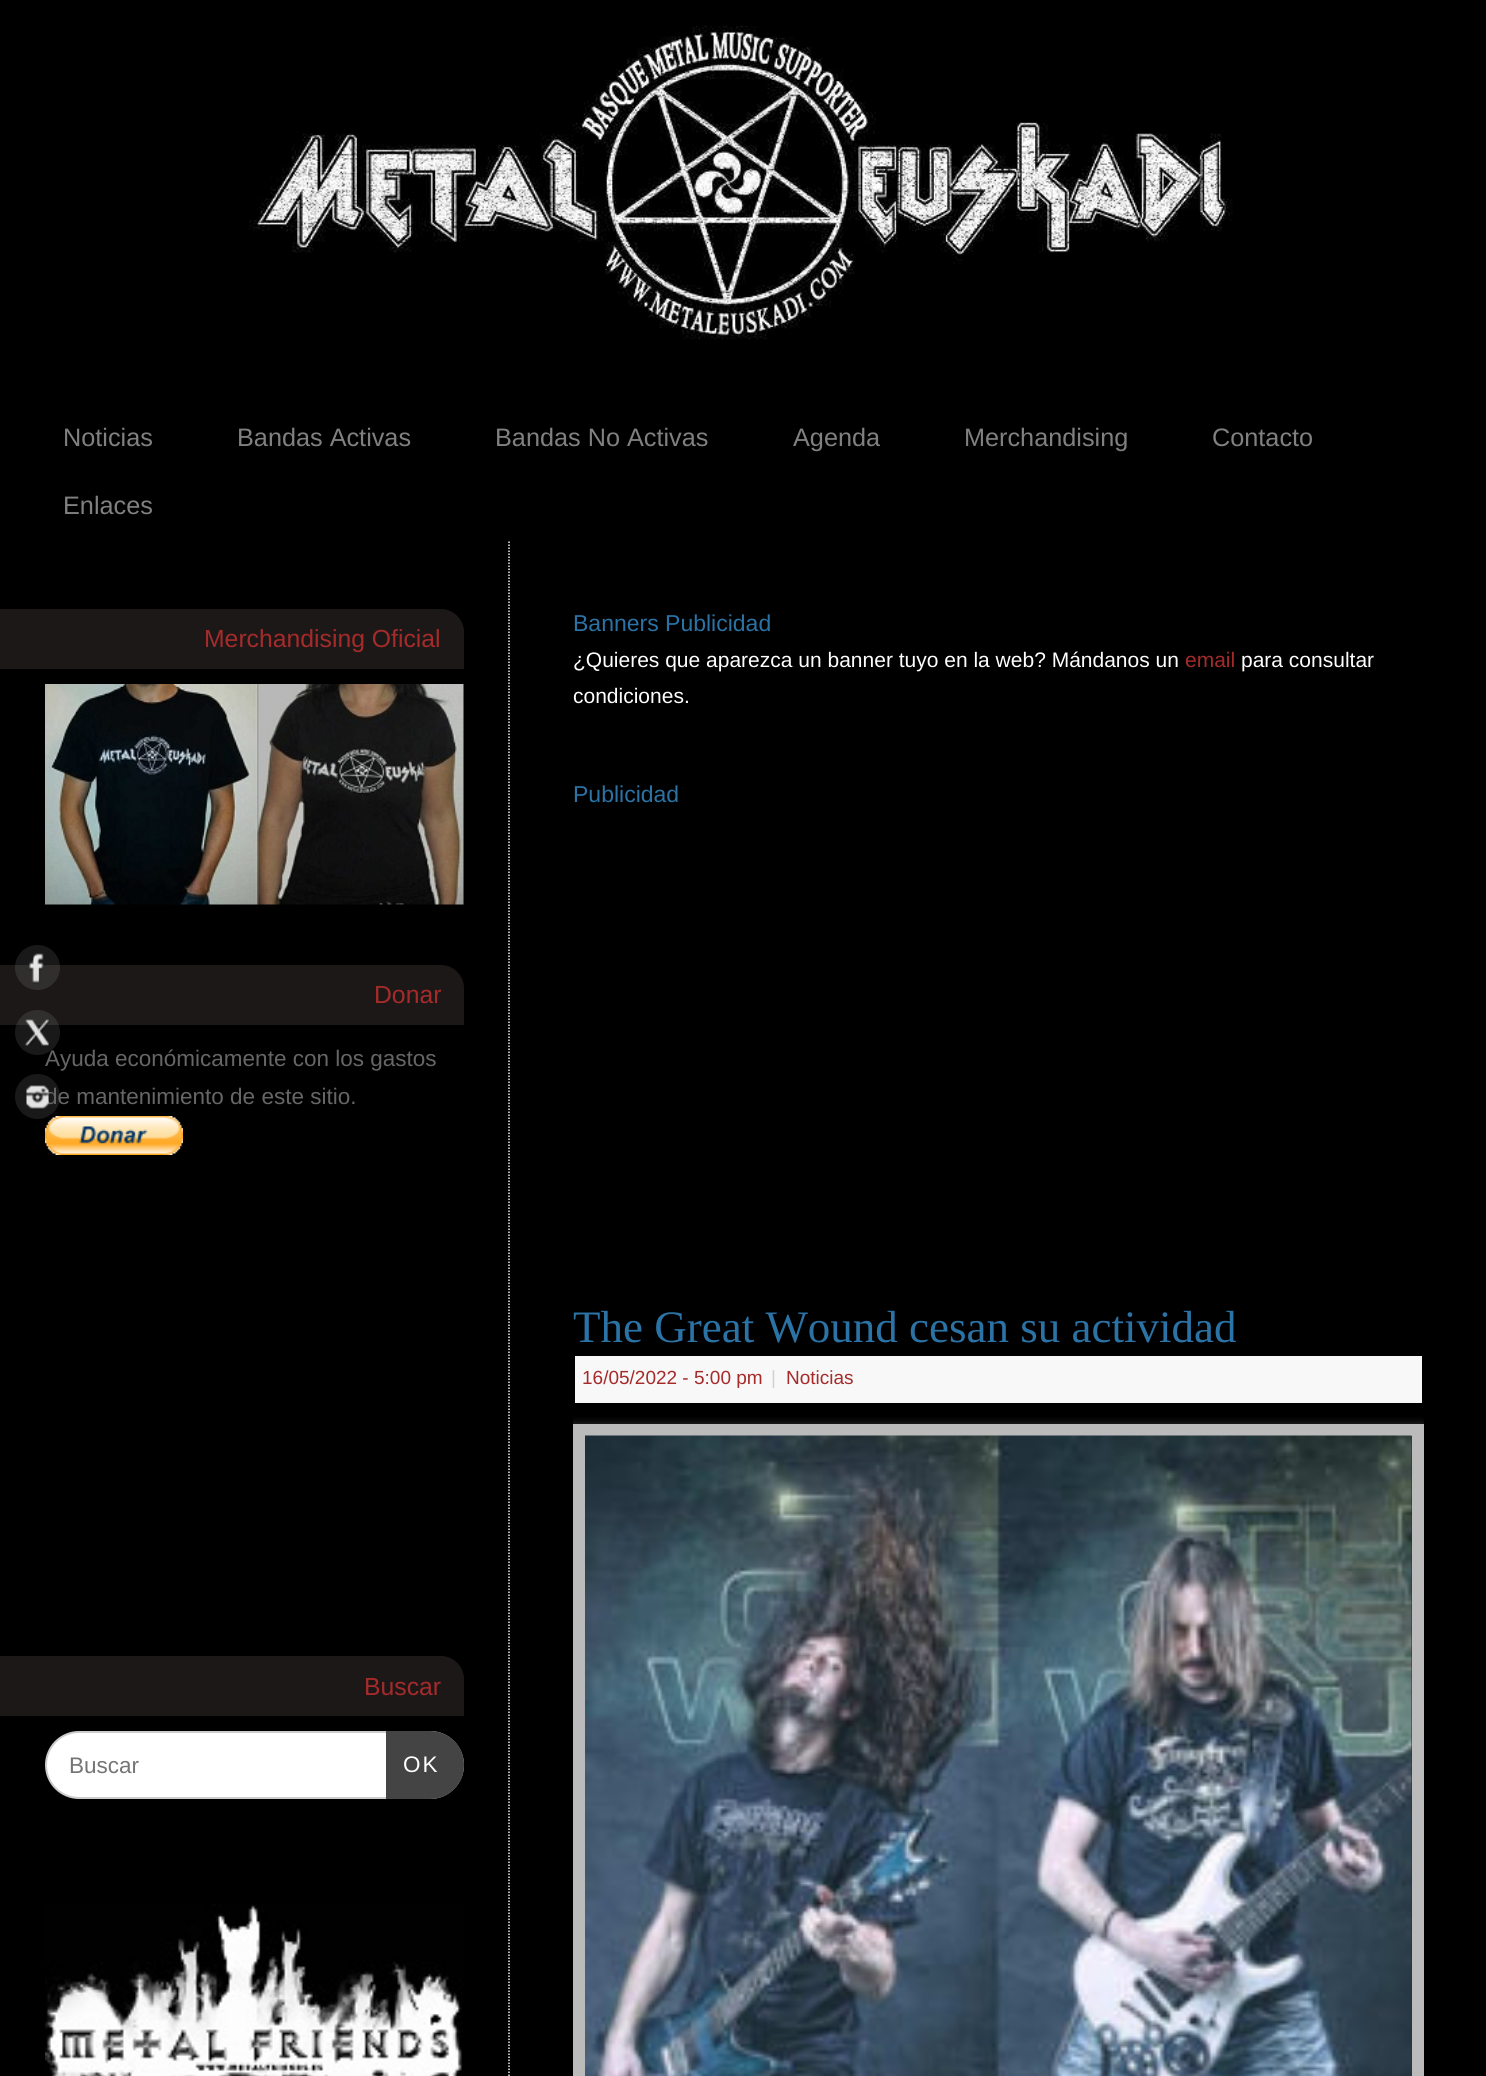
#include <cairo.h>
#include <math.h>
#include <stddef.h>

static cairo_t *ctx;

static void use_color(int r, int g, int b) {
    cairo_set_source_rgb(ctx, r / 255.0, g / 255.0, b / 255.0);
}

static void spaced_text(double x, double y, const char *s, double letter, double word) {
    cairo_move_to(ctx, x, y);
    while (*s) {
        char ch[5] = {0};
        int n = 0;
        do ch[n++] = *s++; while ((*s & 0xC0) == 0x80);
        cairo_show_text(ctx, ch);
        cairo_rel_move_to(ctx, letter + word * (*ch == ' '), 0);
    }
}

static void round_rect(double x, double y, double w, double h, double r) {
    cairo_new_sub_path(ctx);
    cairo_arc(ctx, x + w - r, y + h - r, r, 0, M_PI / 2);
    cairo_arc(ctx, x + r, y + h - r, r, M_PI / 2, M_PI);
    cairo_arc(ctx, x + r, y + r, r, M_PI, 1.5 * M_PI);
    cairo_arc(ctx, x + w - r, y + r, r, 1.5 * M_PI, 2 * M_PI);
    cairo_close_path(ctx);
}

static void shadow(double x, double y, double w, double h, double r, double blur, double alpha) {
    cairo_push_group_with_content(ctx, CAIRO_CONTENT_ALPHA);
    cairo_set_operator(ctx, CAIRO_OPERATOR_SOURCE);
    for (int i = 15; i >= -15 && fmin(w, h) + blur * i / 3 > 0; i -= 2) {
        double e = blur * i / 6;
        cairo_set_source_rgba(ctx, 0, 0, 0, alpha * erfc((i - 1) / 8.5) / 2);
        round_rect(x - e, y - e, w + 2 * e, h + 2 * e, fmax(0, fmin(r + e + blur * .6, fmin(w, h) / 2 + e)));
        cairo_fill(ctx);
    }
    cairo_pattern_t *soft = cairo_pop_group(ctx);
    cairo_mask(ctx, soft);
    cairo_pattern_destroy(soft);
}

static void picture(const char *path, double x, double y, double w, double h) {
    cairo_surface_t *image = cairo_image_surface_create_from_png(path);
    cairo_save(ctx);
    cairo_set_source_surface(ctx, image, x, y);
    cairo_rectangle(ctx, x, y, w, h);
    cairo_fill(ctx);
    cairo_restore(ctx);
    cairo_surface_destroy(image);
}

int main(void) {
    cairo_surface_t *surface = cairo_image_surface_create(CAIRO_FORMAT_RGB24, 1486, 2076);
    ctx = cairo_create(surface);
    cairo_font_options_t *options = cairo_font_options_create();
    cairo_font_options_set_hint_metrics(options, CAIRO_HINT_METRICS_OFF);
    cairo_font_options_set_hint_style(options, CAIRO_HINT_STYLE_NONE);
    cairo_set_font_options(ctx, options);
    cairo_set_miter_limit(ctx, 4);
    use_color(0, 0, 0);
    cairo_paint(ctx);
    picture("img1.png", 249, 25, 984, 315);
    cairo_select_font_face(ctx, "Liberation Sans", CAIRO_FONT_SLANT_NORMAL, CAIRO_FONT_WEIGHT_NORMAL);
    cairo_set_font_size(ctx, 25.25);
    use_color(128, 128, 128);
    cairo_move_to(ctx, 63, 446);
    cairo_show_text(ctx, "Noticias");
    cairo_move_to(ctx, 237, 446);
    cairo_show_text(ctx, "Bandas Activas");
    cairo_move_to(ctx, 495, 446);
    cairo_show_text(ctx, "Bandas No Activas");
    cairo_move_to(ctx, 793, 446);
    cairo_show_text(ctx, "Agenda");
    cairo_move_to(ctx, 964, 446);
    cairo_show_text(ctx, "Merchandising");
    cairo_move_to(ctx, 1212, 446);
    cairo_show_text(ctx, "Contacto");
    cairo_move_to(ctx, 63, 514);
    cairo_show_text(ctx, "Enlaces");
    use_color(27, 24, 23);
    cairo_new_path(ctx);
    cairo_move_to(ctx, 0, 965);
    cairo_line_to(ctx, 441, 965);
    cairo_curve_to(ctx, 453.5, 965, 464, 975.5, 464, 988);
    cairo_line_to(ctx, 464, 1025);
    cairo_line_to(ctx, 0, 1025);
    cairo_close_path(ctx);
    cairo_fill(ctx);
    cairo_set_source_rgba(ctx, 1, 1, 1, 0.1);
    cairo_arc(ctx, 37.5, 967.5, 22.5, 0, 2 * M_PI);
    cairo_fill(ctx);
    picture("img2.png", 29, 953, 15, 31);
    cairo_arc(ctx, 37.5, 1032.5, 22.5, 0, 2 * M_PI);
    cairo_fill(ctx);
    picture("img3.png", 25, 1019, 25, 27);
    picture("img6.png", 45, 1116, 138, 39);
    cairo_arc(ctx, 37.5, 1096.5, 22.5, 0, 2 * M_PI);
    cairo_fill(ctx);
    cairo_set_font_size(ctx, 22.5);
    use_color(102, 102, 102);
    cairo_move_to(ctx, 45, 1104);
    cairo_show_text(ctx, "de mantenimiento de este sitio.");
    picture("img4.png", 26, 1085, 24, 25);
    cairo_new_path(ctx);
    cairo_move_to(ctx, 509, 541.5);
    cairo_line_to(ctx, 509, 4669.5);
    use_color(238, 238, 238);
    cairo_set_line_width(ctx, 1.5);
    cairo_set_dash(ctx, (double[]){1.5, 1.5}, 2, 0);
    cairo_stroke(ctx);
    use_color(27, 24, 23);
    cairo_new_path(ctx);
    cairo_move_to(ctx, 0, 609);
    cairo_line_to(ctx, 441, 609);
    cairo_curve_to(ctx, 453.5, 609, 464, 619.5, 464, 632);
    cairo_line_to(ctx, 464, 669);
    cairo_line_to(ctx, 0, 669);
    cairo_close_path(ctx);
    cairo_fill(ctx);
    cairo_set_font_size(ctx, 24.75);
    use_color(165, 43, 43);
    cairo_move_to(ctx, 204, 647);
    cairo_show_text(ctx, "Merchandising Oficial");
    picture("img5.png", 45, 684, 419, 221);
    cairo_move_to(ctx, 374, 1003);
    cairo_show_text(ctx, "Donar");
    cairo_set_font_size(ctx, 22.5);
    use_color(102, 102, 102);
    cairo_move_to(ctx, 45, 1066);
    cairo_show_text(ctx, "Ayuda económicamente con los gastos");
    use_color(27, 24, 23);
    cairo_new_path(ctx);
    cairo_move_to(ctx, 0, 1656);
    cairo_line_to(ctx, 441, 1656);
    cairo_curve_to(ctx, 453.5, 1656, 464, 1666.5, 464, 1679);
    cairo_line_to(ctx, 464, 1716);
    cairo_line_to(ctx, 0, 1716);
    cairo_close_path(ctx);
    cairo_fill(ctx);
    cairo_set_font_size(ctx, 24.75);
    use_color(165, 43, 43);
    cairo_move_to(ctx, 364, 1695);
    cairo_show_text(ctx, "Buscar");
    use_color(255, 255, 255);
    round_rect(46, 1732, 417, 66, 33);
    cairo_fill_preserve(ctx);
    use_color(204, 204, 204);
    cairo_set_line_width(ctx, 2);
    cairo_set_dash(ctx, NULL, 0, 0);
    cairo_stroke(ctx);
    cairo_set_font_size(ctx, 22.5);
    use_color(117, 117, 117);
    cairo_move_to(ctx, 69, 1773);
    cairo_show_text(ctx, "Buscar");
    use_color(68, 68, 68);
    cairo_new_path(ctx);
    cairo_move_to(ctx, 386, 1731);
    cairo_line_to(ctx, 430, 1731);
    cairo_curve_to(ctx, 449, 1731, 464, 1746, 464, 1765);
    cairo_curve_to(ctx, 464, 1784, 449, 1799, 430, 1799);
    cairo_line_to(ctx, 386, 1799);
    cairo_close_path(ctx);
    cairo_fill(ctx);
    use_color(255, 255, 255);
    spaced_text(403, 1772, "OK", 2, 0);
    picture("img7.png", 45, 1904, 418, 172);
    cairo_set_font_size(ctx, 23);
    use_color(43, 114, 165);
    cairo_move_to(ctx, 573, 631);
    cairo_show_text(ctx, "Banners Publicidad");
    cairo_set_font_size(ctx, 21);
    use_color(255, 255, 255);
    cairo_move_to(ctx, 573, 667);
    cairo_show_text(ctx, "¿Quieres que aparezca un banner tuyo en la web? Mándanos un");
    use_color(165, 43, 43);
    cairo_move_to(ctx, 1185, 667);
    cairo_show_text(ctx, "email");
    use_color(255, 255, 255);
    cairo_move_to(ctx, 1241, 667);
    cairo_show_text(ctx, "para consultar");
    cairo_move_to(ctx, 573, 703);
    cairo_show_text(ctx, "condiciones.");
    cairo_set_font_size(ctx, 23);
    use_color(43, 114, 165);
    cairo_move_to(ctx, 573, 802);
    cairo_show_text(ctx, "Publicidad");
    cairo_select_font_face(ctx, "Liberation Serif", CAIRO_FONT_SLANT_NORMAL, CAIRO_FONT_WEIGHT_NORMAL);
    cairo_set_font_size(ctx, 45);
    cairo_move_to(ctx, 573, 1342);
    cairo_show_text(ctx, "The Great Wound cesan su actividad");
    use_color(248, 248, 248);
    cairo_rectangle(ctx, 575, 1356, 847, 47);
    cairo_fill(ctx);
    cairo_select_font_face(ctx, "Liberation Sans", CAIRO_FONT_SLANT_NORMAL, CAIRO_FONT_WEIGHT_NORMAL);
    cairo_set_font_size(ctx, 19);
    use_color(165, 43, 43);
    cairo_move_to(ctx, 582, 1384);
    cairo_show_text(ctx, "16/05/2022 - 5:00 pm");
    use_color(209, 209, 209);
    cairo_move_to(ctx, 771, 1384);
    cairo_show_text(ctx, "|");
    use_color(165, 43, 43);
    cairo_move_to(ctx, 786, 1384);
    cairo_show_text(ctx, "Noticias");
    cairo_save(ctx);
    cairo_rectangle(ctx, 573, 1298, 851, 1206);
    cairo_clip(ctx);
    use_color(51, 51, 51);
    shadow(573, 1424, 851, 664, 0, 4, 1);
    cairo_restore(ctx);
    cairo_rectangle(ctx, 579, 1430, 839, 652);
    use_color(187, 187, 187);
    cairo_set_line_width(ctx, 12);
    cairo_stroke(ctx);
    picture("img8.png", 585, 1435, 827, 641);
    cairo_surface_write_to_png(surface, "result.png");
    cairo_font_options_destroy(options);
    cairo_destroy(ctx);
    cairo_surface_destroy(surface);
    return 0;
}
